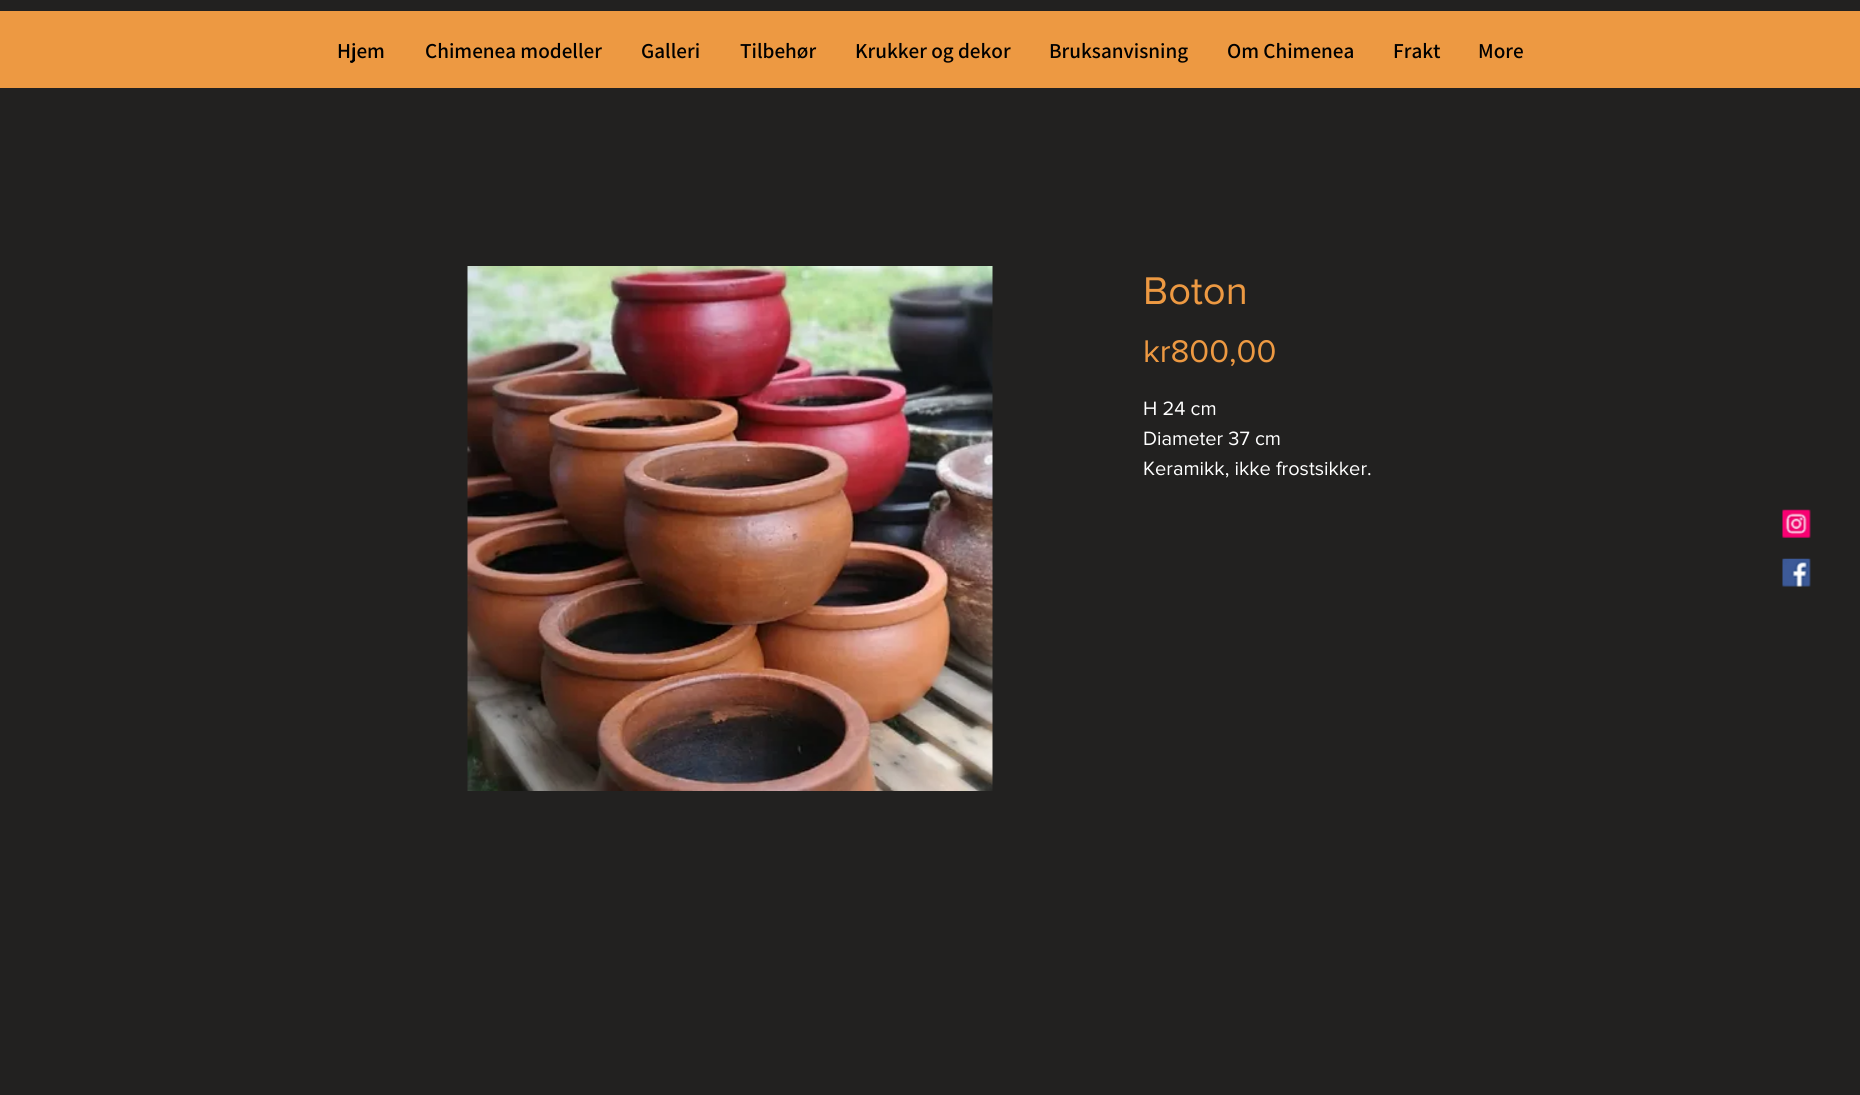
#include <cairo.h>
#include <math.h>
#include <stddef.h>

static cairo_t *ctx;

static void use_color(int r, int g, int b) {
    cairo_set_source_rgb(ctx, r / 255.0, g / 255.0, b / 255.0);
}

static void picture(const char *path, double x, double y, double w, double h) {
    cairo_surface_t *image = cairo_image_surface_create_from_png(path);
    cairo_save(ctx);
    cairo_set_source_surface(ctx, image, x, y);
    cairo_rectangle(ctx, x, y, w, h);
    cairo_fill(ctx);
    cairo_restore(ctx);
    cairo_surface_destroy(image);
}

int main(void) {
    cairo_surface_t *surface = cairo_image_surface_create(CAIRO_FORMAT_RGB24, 1860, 1095);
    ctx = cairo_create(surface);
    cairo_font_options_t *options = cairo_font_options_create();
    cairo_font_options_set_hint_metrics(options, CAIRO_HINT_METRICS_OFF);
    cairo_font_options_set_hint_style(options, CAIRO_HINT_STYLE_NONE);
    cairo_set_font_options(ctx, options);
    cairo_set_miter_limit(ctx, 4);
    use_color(34, 33, 32);
    cairo_paint(ctx);
    use_color(237, 153, 66);
    cairo_rectangle(ctx, 0, 11, 1860, 77);
    cairo_fill(ctx);
    cairo_select_font_face(ctx, "Assistant SemiBold", CAIRO_FONT_SLANT_NORMAL, CAIRO_FONT_WEIGHT_NORMAL);
    cairo_set_font_size(ctx, 21.25);
    use_color(0, 0, 0);
    cairo_move_to(ctx, 337, 58);
    cairo_show_text(ctx, "Hjem");
    cairo_move_to(ctx, 425, 58);
    cairo_show_text(ctx, "Chimenea modeller");
    cairo_move_to(ctx, 641, 58);
    cairo_show_text(ctx, "Galleri");
    cairo_move_to(ctx, 740, 58);
    cairo_show_text(ctx, "Tilbehør");
    cairo_move_to(ctx, 855, 58);
    cairo_show_text(ctx, "Krukker og dekor");
    cairo_move_to(ctx, 1049, 58);
    cairo_show_text(ctx, "Bruksanvisning");
    cairo_move_to(ctx, 1227, 58);
    cairo_show_text(ctx, "Om Chimenea");
    cairo_move_to(ctx, 1393, 58);
    cairo_show_text(ctx, "Frakt");
    cairo_move_to(ctx, 1478, 58);
    cairo_show_text(ctx, "More");
    picture("img1.png", 467, 266, 526, 525);
    cairo_select_font_face(ctx, "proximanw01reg", CAIRO_FONT_SLANT_NORMAL, CAIRO_FONT_WEIGHT_NORMAL);
    cairo_set_font_size(ctx, 40);
    use_color(237, 153, 66);
    cairo_move_to(ctx, 1143, 304);
    cairo_show_text(ctx, "Boton");
    cairo_set_font_size(ctx, 32.5);
    cairo_move_to(ctx, 1143, 362);
    cairo_show_text(ctx, "kr800,00");
    cairo_set_font_size(ctx, 20);
    use_color(255, 255, 255);
    cairo_move_to(ctx, 1143, 415);
    cairo_show_text(ctx, "H 24 cm");
    cairo_move_to(ctx, 1143, 445);
    cairo_show_text(ctx, "Diameter 37 cm");
    cairo_move_to(ctx, 1143, 475);
    cairo_show_text(ctx, "Keramikk, ikke frostsikker.");
    picture("img2.png", 1782, 509, 29, 29);
    picture("img3.png", 1782, 558, 29, 29);
    cairo_surface_write_to_png(surface, "result.png");
    cairo_font_options_destroy(options);
    cairo_destroy(ctx);
    cairo_surface_destroy(surface);
    return 0;
}
